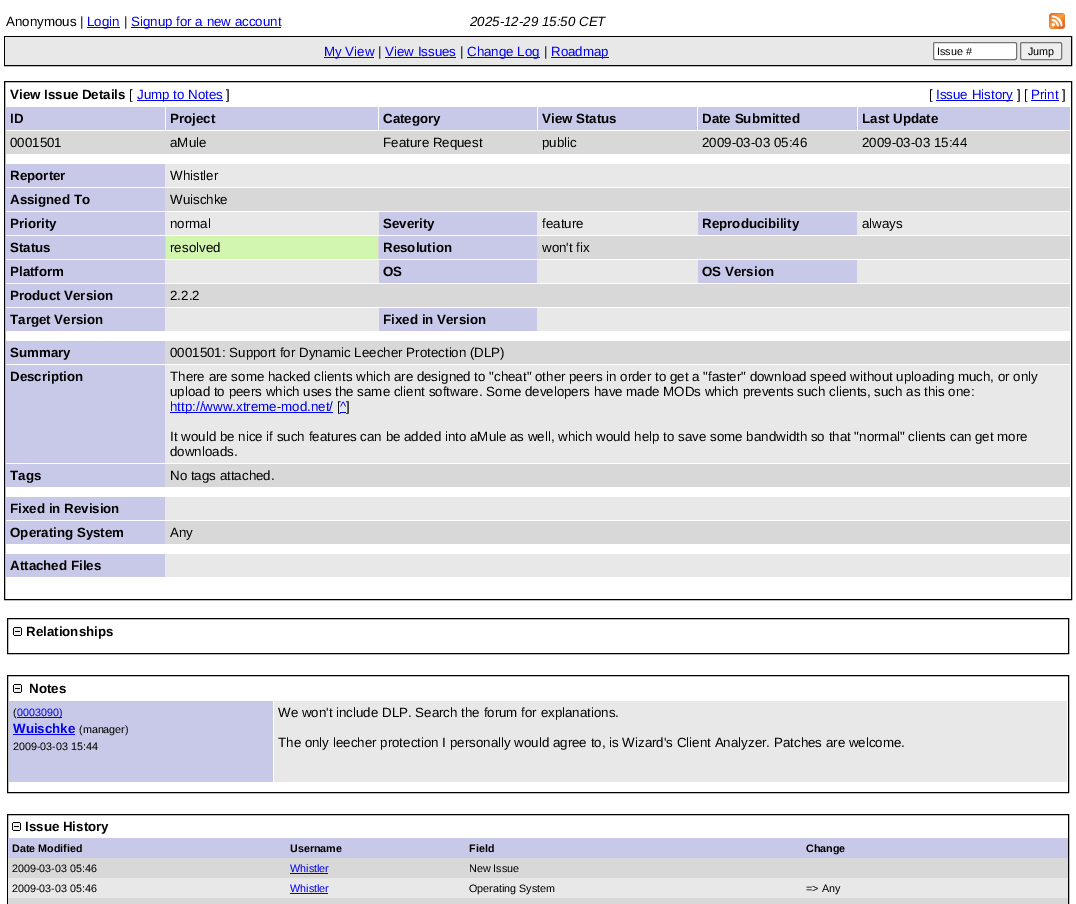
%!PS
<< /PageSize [1076 904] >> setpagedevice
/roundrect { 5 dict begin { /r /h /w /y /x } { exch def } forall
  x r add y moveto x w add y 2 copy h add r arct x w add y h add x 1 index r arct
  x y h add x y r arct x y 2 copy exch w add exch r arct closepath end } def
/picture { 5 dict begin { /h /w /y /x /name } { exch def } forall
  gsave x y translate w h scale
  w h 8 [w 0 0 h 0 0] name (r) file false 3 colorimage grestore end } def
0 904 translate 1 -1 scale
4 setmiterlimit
1 setgray
0 0 1076 904 rectfill
/LiberationSans-Regular [13.33 0 0 -13.33 0 0] selectfont
0 setgray
6 26 moveto (Anonymous |) show
0 0 0.933 setrgbcolor
87 27 33 1 rectfill
87 26 moveto (Login) show
0 setgray
124 26 moveto (|) show
0 0 0.933 setrgbcolor
131 27 150 1 rectfill
131 26 moveto (Signup for a new account) show
/LiberationSans-Italic [13.33 0 0 -13.33 0 0] selectfont
0 setgray
470 26 moveto (2025-12-29 15:50 CET) show
(img1.rgb) 1049 13 16 16 picture
4.5 36.5 1067 29 rectstroke
0.91 setgray
5 37 1066 28 rectfill
0 0 0.933 setrgbcolor
324 57 50 1 rectfill
/LiberationSans-Regular [13.33 0 0 -13.33 0 0] selectfont
324 56 moveto (My View) show
0 setgray
378 56 moveto (|) show
0 0 0.933 setrgbcolor
385 56 moveto (View Issues) show
385 57 71 1 rectfill
0 setgray
460 56 moveto (|) show
0 0 0.933 setrgbcolor
467 57 73 1 rectfill
467 56 moveto (Change Log) show
0 setgray
544 56 moveto (|) show
0 0 0.933 setrgbcolor
551 57 58 1 rectfill
551 56 moveto (Roadmap) show
1 setgray
933.5 42.5 83 17 1.5 roundrect gsave fill grestore
0.463 setgray
stroke
/LiberationSans-Regular [10.75 0 0 -10.75 0 0] selectfont
0 setgray
937 55 moveto (Issue #) show
0.937 setgray
1020.5 42.5 41 17 1.5 roundrect gsave fill grestore
0.463 setgray
stroke
0 setgray
1028 55 moveto (Jump) show
4.5 81.5 1067 518 rectstroke
/LiberationSans-Bold [13.33 0 0 -13.33 0 0] selectfont
10 99 moveto (View Issue Details) show
/LiberationSans-Regular [13.33 0 0 -13.33 0 0] selectfont
129 99 moveto ([) show
0 0 0.933 setrgbcolor
137 100 86 1 rectfill
137 99 moveto (Jump to Notes) show
0 setgray
226 99 moveto (]) show
929 99 moveto ([) show
0 0 0.933 setrgbcolor
936 100 77 1 rectfill
936 99 moveto (Issue History) show
0 setgray
1017 99 moveto (]) show
1024 99 moveto ([) show
0 0 0.933 setrgbcolor
1031 99 moveto (Print) show
1031 100 28 1 rectfill
0 setgray
1062 99 moveto (]) show
0.784 0.784 0.91 setrgbcolor
6 107 159 23 rectfill
/LiberationSans-Bold [13.33 0 0 -13.33 0 0] selectfont
0 setgray
10 123 moveto (ID) show
0.784 0.784 0.91 setrgbcolor
166 107 212 23 rectfill
0 setgray
170 123 moveto (Project) show
0.784 0.784 0.91 setrgbcolor
379 107 158 23 rectfill
0 setgray
383 123 moveto (Category) show
0.784 0.784 0.91 setrgbcolor
538 107 159 23 rectfill
0 setgray
542 123 moveto (View Status) show
0.784 0.784 0.91 setrgbcolor
698 107 159 23 rectfill
0 setgray
702 123 moveto (Date Submitted) show
0.784 0.784 0.91 setrgbcolor
858 107 212 23 rectfill
0 setgray
862 123 moveto (Last Update) show
0.847 setgray
6 131 1064 23 rectfill
/LiberationSans-Regular [13.33 0 0 -13.33 0 0] selectfont
0 setgray
10 147 moveto (0001501) show
170 147 moveto (aMule) show
383 147 moveto (Feature Request) show
542 147 moveto (public) show
702 147 moveto (2009-03-03 05:46) show
862 147 moveto (2009-03-03 15:44) show
0.91 setgray
165 164 905 23 rectfill
0.784 0.784 0.91 setrgbcolor
6 164 159 23 rectfill
/LiberationSans-Bold [13.33 0 0 -13.33 0 0] selectfont
0 setgray
10 180 moveto (Reporter) show
/LiberationSans-Regular [13.33 0 0 -13.33 0 0] selectfont
170 180 moveto (Whistler) show
0.847 setgray
165 188 905 23 rectfill
0.784 0.784 0.91 setrgbcolor
6 188 159 23 rectfill
/LiberationSans-Bold [13.33 0 0 -13.33 0 0] selectfont
0 setgray
10 204 moveto (Assigned To) show
/LiberationSans-Regular [13.33 0 0 -13.33 0 0] selectfont
170 204 moveto (Wuischke) show
0.91 setgray
165 212 905 23 rectfill
0.784 0.784 0.91 setrgbcolor
6 212 159 23 rectfill
/LiberationSans-Bold [13.33 0 0 -13.33 0 0] selectfont
0 setgray
10 228 moveto (Priority) show
/LiberationSans-Regular [13.33 0 0 -13.33 0 0] selectfont
170 228 moveto (normal) show
0.784 0.784 0.91 setrgbcolor
379 212 158 23 rectfill
/LiberationSans-Bold [13.33 0 0 -13.33 0 0] selectfont
0 setgray
383 228 moveto (Severity) show
/LiberationSans-Regular [13.33 0 0 -13.33 0 0] selectfont
542 228 moveto (feature) show
0.784 0.784 0.91 setrgbcolor
698 212 159 23 rectfill
/LiberationSans-Bold [13.33 0 0 -13.33 0 0] selectfont
0 setgray
702 228 moveto (Reproducibility) show
/LiberationSans-Regular [13.33 0 0 -13.33 0 0] selectfont
862 228 moveto (always) show
0.847 setgray
165 236 905 23 rectfill
0.784 0.784 0.91 setrgbcolor
6 236 159 23 rectfill
/LiberationSans-Bold [13.33 0 0 -13.33 0 0] selectfont
0 setgray
10 252 moveto (Status) show
0.824 0.961 0.69 setrgbcolor
166 236 212 23 rectfill
/LiberationSans-Regular [13.33 0 0 -13.33 0 0] selectfont
0 setgray
170 252 moveto (resolved) show
0.784 0.784 0.91 setrgbcolor
379 236 158 23 rectfill
/LiberationSans-Bold [13.33 0 0 -13.33 0 0] selectfont
0 setgray
383 252 moveto (Resolution) show
/LiberationSans-Regular [13.33 0 0 -13.33 0 0] selectfont
542 252 moveto (won't fix) show
0.91 setgray
165 260 905 23 rectfill
0.784 0.784 0.91 setrgbcolor
6 260 159 23 rectfill
/LiberationSans-Bold [13.33 0 0 -13.33 0 0] selectfont
0 setgray
10 276 moveto (Platform) show
0.784 0.784 0.91 setrgbcolor
379 260 158 23 rectfill
0 setgray
383 276 moveto (OS) show
0.784 0.784 0.91 setrgbcolor
698 260 159 23 rectfill
0 setgray
702 276 moveto (OS Version) show
0.847 setgray
165 284 905 23 rectfill
0.784 0.784 0.91 setrgbcolor
6 284 159 23 rectfill
0 setgray
10 300 moveto (Product Version) show
/LiberationSans-Regular [13.33 0 0 -13.33 0 0] selectfont
170 300 moveto (2.2.2) show
0.91 setgray
165 308 905 23 rectfill
0.784 0.784 0.91 setrgbcolor
6 308 159 23 rectfill
/LiberationSans-Bold [13.33 0 0 -13.33 0 0] selectfont
0 setgray
10 324 moveto (Target Version) show
0.784 0.784 0.91 setrgbcolor
379 308 158 23 rectfill
0 setgray
383 324 moveto (Fixed in Version) show
0.847 setgray
165 341 905 23 rectfill
0.784 0.784 0.91 setrgbcolor
6 341 159 23 rectfill
0 setgray
10 357 moveto (Summary) show
/LiberationSans-Regular [13.33 0 0 -13.33 0 0] selectfont
170 357 moveto (0001501: Support for Dynamic Leecher Protection \(DLP\)) show
0.91 setgray
165 365 905 98 rectfill
0.784 0.784 0.91 setrgbcolor
6 365 159 98 rectfill
/LiberationSans-Bold [13.33 0 0 -13.33 0 0] selectfont
0 setgray
10 381 moveto (Description) show
/LiberationSans-Regular [13.33 0 0 -13.33 0 0] selectfont
170 381 moveto (There are some hacked clients which are designed to "cheat" other peers in order to get a "faster" download speed without uploading much, or only) show
170 396 moveto (upload to peers which uses the same client software. Some developers have made MODs which prevents such clients, such as this one:) show
0 0 0.933 setrgbcolor
170 412 163 1 rectfill
170 411 moveto (http://www.xtreme-mod.net/) show
0 setgray
337 411 moveto ([) show
0 0 0.933 setrgbcolor
340 411 moveto (^) show
340 412 6 1 rectfill
0 setgray
346 411 moveto (]) show
170 441 moveto (It would be nice if such features can be added into aMule as well, which would help to save some bandwidth so that "normal" clients can get more) show
170 456 moveto (downloads.) show
0.847 setgray
165 464 905 23 rectfill
0.784 0.784 0.91 setrgbcolor
6 464 159 23 rectfill
/LiberationSans-Bold [13.33 0 0 -13.33 0 0] selectfont
0 setgray
10 480 moveto (Tags) show
/LiberationSans-Regular [13.33 0 0 -13.33 0 0] selectfont
170 480 moveto (No tags attached.) show
0.91 setgray
165 497 905 23 rectfill
0.784 0.784 0.91 setrgbcolor
6 497 159 23 rectfill
/LiberationSans-Bold [13.33 0 0 -13.33 0 0] selectfont
0 setgray
10 513 moveto (Fixed in Revision) show
0.847 setgray
165 521 905 23 rectfill
0.784 0.784 0.91 setrgbcolor
6 521 159 23 rectfill
0 setgray
10 537 moveto (Operating System) show
/LiberationSans-Regular [13.33 0 0 -13.33 0 0] selectfont
170 537 moveto (Any) show
0.91 setgray
165 554 905 23 rectfill
0.784 0.784 0.91 setrgbcolor
6 554 159 23 rectfill
/LiberationSans-Bold [13.33 0 0 -13.33 0 0] selectfont
0 setgray
10 570 moveto (Attached Files) show
7.5 618.5 1061 35 rectstroke
(img2.rgb) 13 627 9 9 picture
26 636 moveto (Relationships) show
7.5 675.5 1061 117 rectstroke
(img2.rgb) 13 684 9 9 picture
29 693 moveto (Notes) show
0.784 0.784 0.91 setrgbcolor
9 701 264 81 rectfill
/LiberationSans-Regular [10.75 0 0 -10.75 0 0] selectfont
0 setgray
13 716 moveto (\() show
0 0 0.933 setrgbcolor
17 717 45 1 rectfill
17 716 moveto (0003090\)) show
/LiberationSans-Bold [13.33 0 0 -13.33 0 0] selectfont
13 733 moveto (Wuischke) show
13 734 62 1 rectfill
/LiberationSans-Regular [10.75 0 0 -10.75 0 0] selectfont
0 setgray
79 733 moveto (\(manager\)) show
13 750 moveto (2009-03-03 15:44) show
0.91 setgray
274 701 793 81 rectfill
/LiberationSans-Regular [13.33 0 0 -13.33 0 0] selectfont
0 setgray
278 717 moveto (We won't include DLP. Search the forum for explanations.) show
278 747 moveto (The only leecher protection I personally would agree to, is Wizard's Client Analyzer. Patches are welcome.) show
7.5 814.5 1061 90 rectstroke
(img2.rgb) 12 822 9 9 picture
/LiberationSans-Bold [13.33 0 0 -13.33 0 0] selectfont
25 831 moveto (Issue History) show
0.784 0.784 0.91 setrgbcolor
8 838 1060 20 rectfill
/LiberationSans-Bold [10.75 0 0 -10.75 0 0] selectfont
0 setgray
12 852 moveto (Date Modified) show
290 852 moveto (Username) show
469 852 moveto (Field) show
806 852 moveto (Change) show
0.847 setgray
8 858 1060 20 rectfill
/LiberationSans-Regular [10.75 0 0 -10.75 0 0] selectfont
0 setgray
12 872 moveto (2009-03-03 05:46) show
0 0 0.933 setrgbcolor
290 872 moveto (Whistler) show
290 873 38 1 rectfill
0 setgray
469 872 moveto (New Issue) show
0.91 setgray
8 878 1060 20 rectfill
0 setgray
12 892 moveto (2009-03-03 05:46) show
0 0 0.933 setrgbcolor
290 892 moveto (Whistler) show
290 893 38 1 rectfill
0 setgray
469 892 moveto (Operating System) show
806 892 moveto (=> Any) show
0.847 setgray
8 898 1060 6 rectfill
showpage
